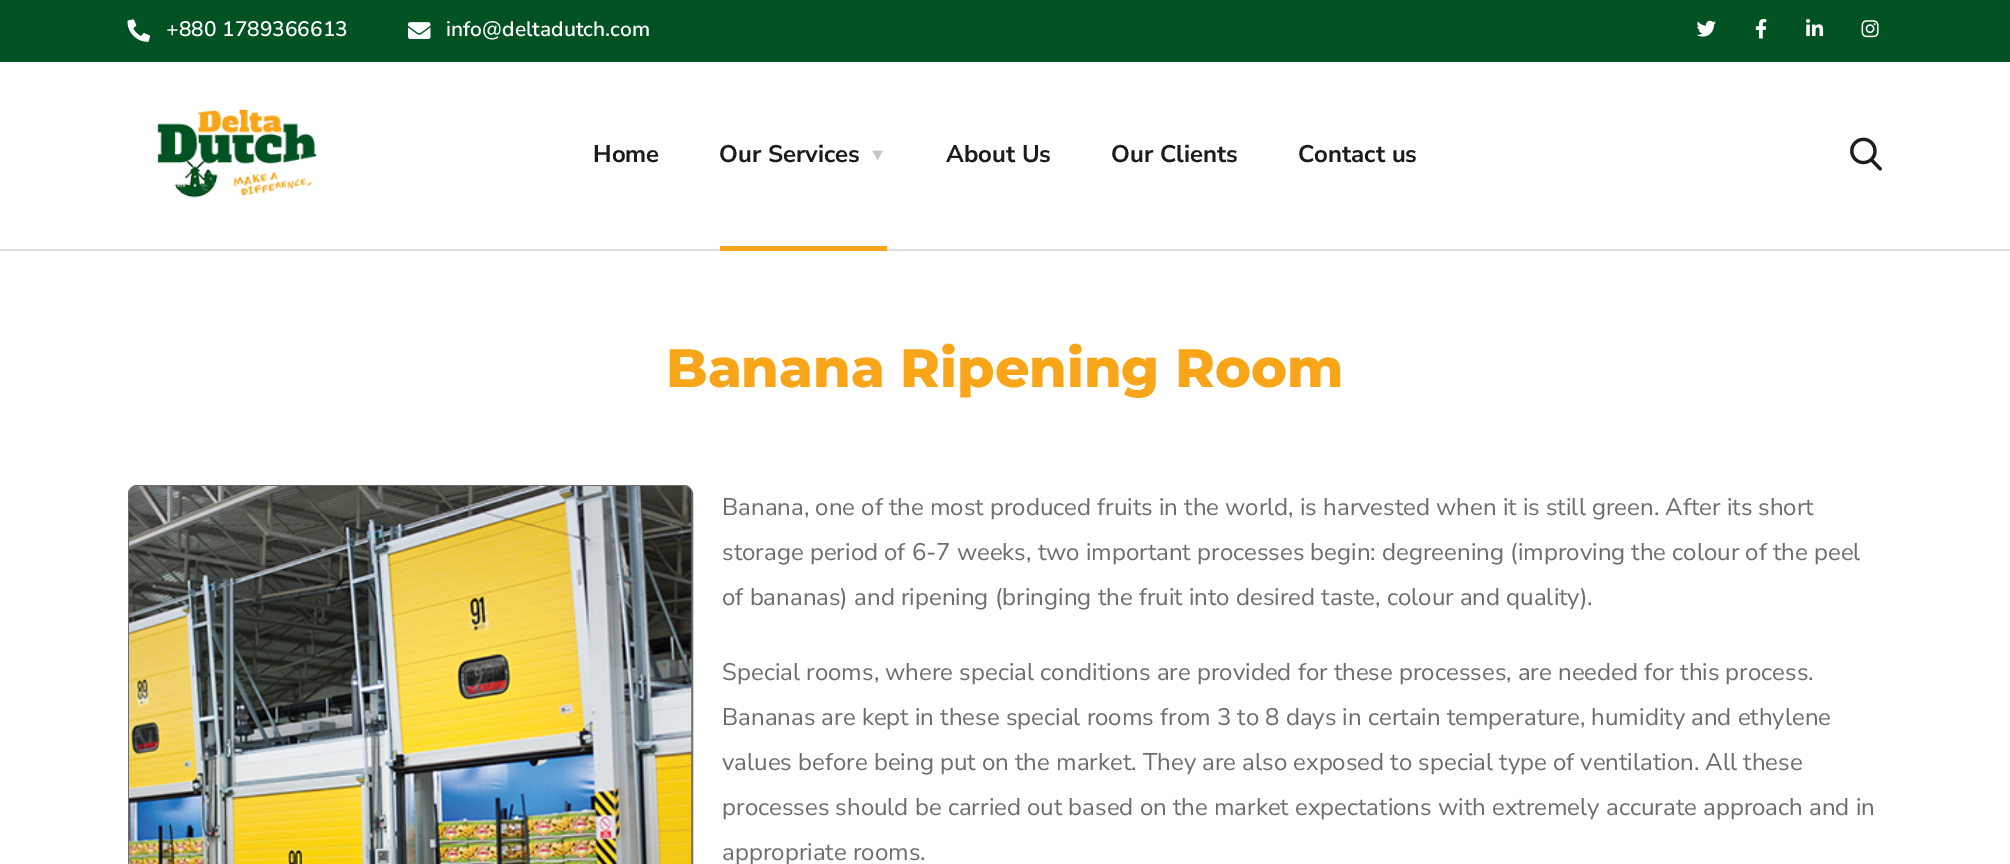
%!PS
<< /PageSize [2010 864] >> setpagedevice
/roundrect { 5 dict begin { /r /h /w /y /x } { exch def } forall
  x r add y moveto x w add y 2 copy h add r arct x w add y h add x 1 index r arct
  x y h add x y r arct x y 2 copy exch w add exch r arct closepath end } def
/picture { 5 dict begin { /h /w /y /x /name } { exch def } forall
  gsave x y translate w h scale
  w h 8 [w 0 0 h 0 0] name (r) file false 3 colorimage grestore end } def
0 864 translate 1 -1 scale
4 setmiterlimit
1 setgray
0 0 2010 864 rectfill
0.863 0.867 0.882 setrgbcolor
0 249 2010 2 rectfill
0 0.322 0.133 setrgbcolor
0 0 2010 62 rectfill
(img1.rgb) 127 19 23 23 picture
/NunitoSans-SemiBold [21 0 0 -21 0 0] selectfont
1 setgray
166 36 moveto (+880 1789366613) show
(img2.rgb) 408 22 23 17 picture
446 36 moveto (info@deltadutch.com) show
(img3.rgb) 1696 20 20 17 picture
(img4.rgb) 1755 18 12 21 picture
(img5.rgb) 1806 19 18 17 picture
(img6.rgb) 1861 20 18 18 picture
(img7.rgb) 157 109 160 89 picture
/NunitoSans-Bold [24 0 0 -24 0 0] selectfont
0.102 0.106 0.118 setrgbcolor
593 162 moveto (Home) show
719 162 moveto (Our Services) show
(img8.rgb) 872 150 11 10 picture
0.976 0.647 0.102 setrgbcolor
720 246 167 5 rectfill
0.102 0.106 0.118 setrgbcolor
946 162 moveto (About Us) show
1111 162 moveto (Our Clients) show
1298 162 moveto (Contact us) show
(img9.rgb) 1850 137 32 34 picture
/Montserrat-ExtraBold [54 0 0 -54 0 0] selectfont
0.976 0.647 0.102 setrgbcolor
666 387 moveto (Banana Ripening Room) show
0.427 setgray
2 setlinewidth
129 486 563 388 8 roundrect stroke
(img10.rgb) 129 486 563 378 picture
/NunitoSans-Regular [24 0 0 -24 0 0] selectfont
722 515 moveto (Banana, one of the most produced fruits in the world, is harvested when it is still green. After its short) show
722 560 moveto (storage period of 6-7 weeks, two important processes begin: degreening \(improving the colour of the peel) show
722 605 moveto (of bananas\) and ripening \(bringing the fruit into desired taste, colour and quality\).) show
722 680 moveto (Special rooms, where special conditions are provided for these processes, are needed for this process.) show
722 725 moveto (Bananas are kept in these special rooms from 3 to 8 days in certain temperature, humidity and ethylene) show
722 770 moveto (values before being put on the market. They are also exposed to special type of ventilation. All these) show
722 815 moveto (processes should be carried out based on the market expectations with extremely accurate approach and in) show
722 860 moveto (appropriate rooms.) show
showpage
